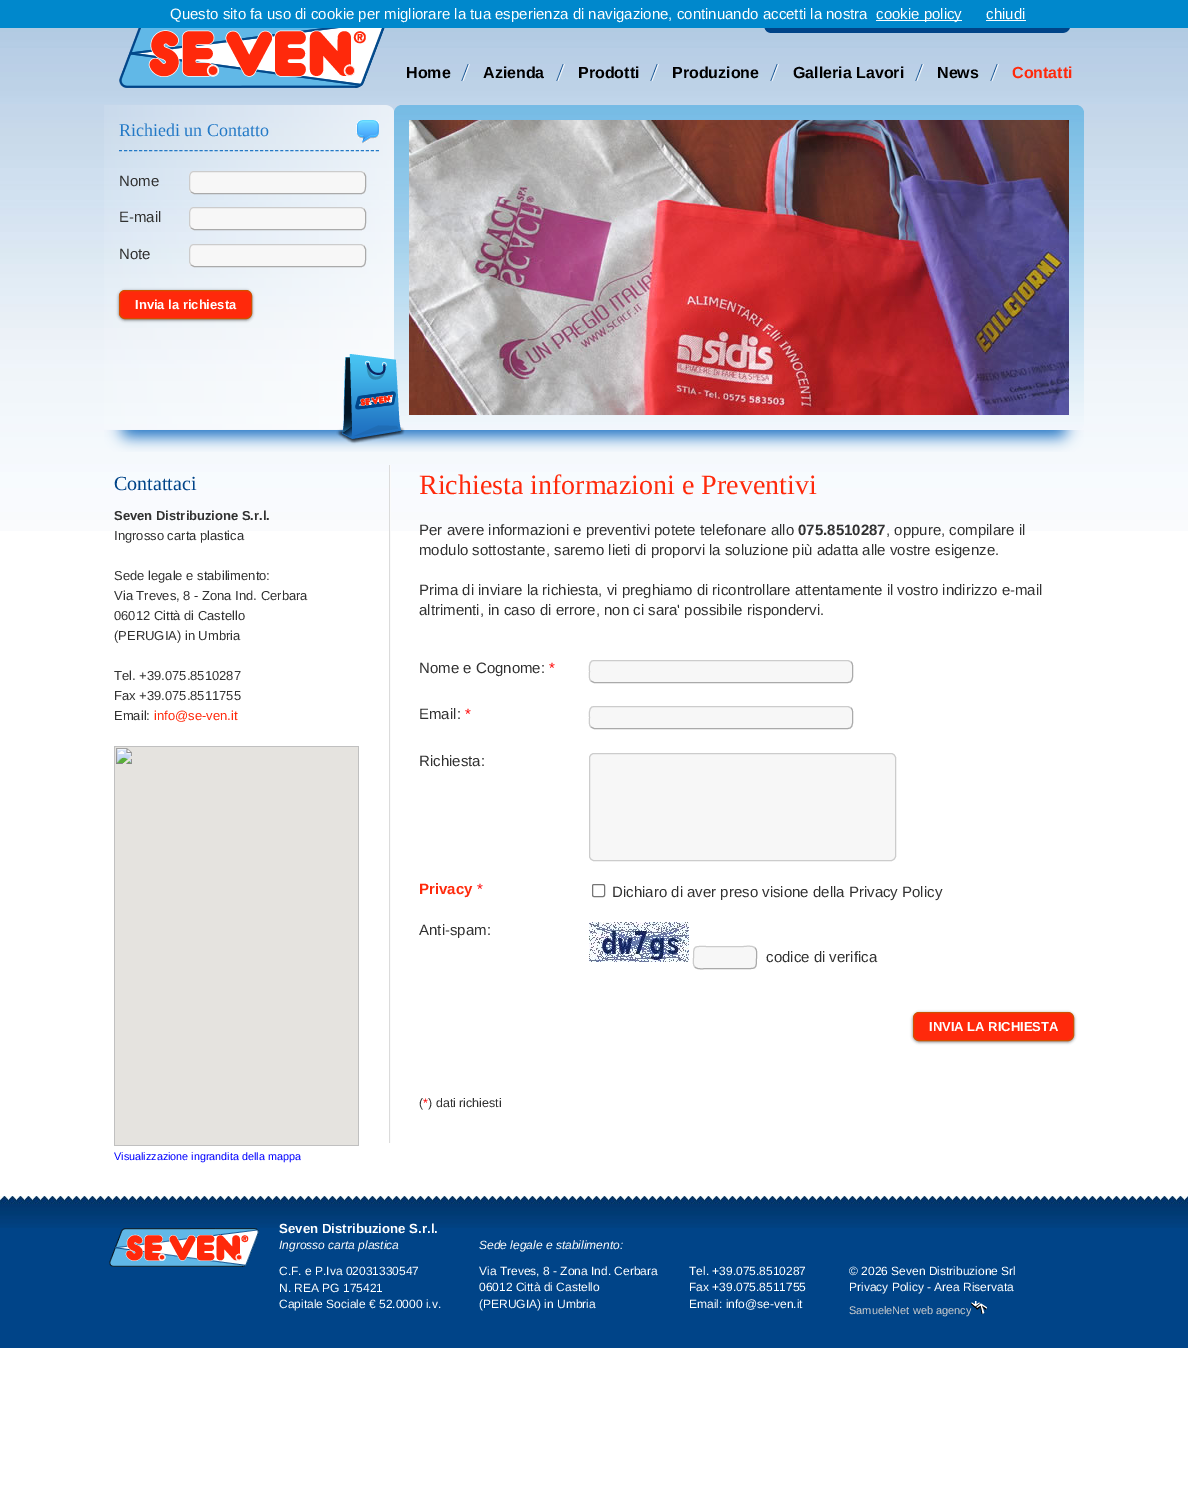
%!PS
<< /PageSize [1188 1487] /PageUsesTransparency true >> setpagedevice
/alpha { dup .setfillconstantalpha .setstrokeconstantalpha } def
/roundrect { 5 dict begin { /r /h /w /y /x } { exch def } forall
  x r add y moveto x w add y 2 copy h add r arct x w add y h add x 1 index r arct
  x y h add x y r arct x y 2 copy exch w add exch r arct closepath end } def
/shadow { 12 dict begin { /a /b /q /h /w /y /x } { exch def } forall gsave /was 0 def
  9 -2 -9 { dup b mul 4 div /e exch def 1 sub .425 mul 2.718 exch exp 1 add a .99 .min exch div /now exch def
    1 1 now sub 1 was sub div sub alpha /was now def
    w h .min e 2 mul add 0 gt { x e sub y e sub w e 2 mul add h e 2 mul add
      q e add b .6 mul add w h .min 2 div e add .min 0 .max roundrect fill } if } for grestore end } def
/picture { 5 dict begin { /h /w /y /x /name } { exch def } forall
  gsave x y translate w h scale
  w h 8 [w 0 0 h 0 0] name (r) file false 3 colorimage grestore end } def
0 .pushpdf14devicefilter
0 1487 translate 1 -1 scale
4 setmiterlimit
1 setgray
0 0 1188 1487 rectfill
(img1.rgb) 0 28 1188 503 picture
0 0.533 0.8 setrgbcolor
0 0 1188 28 rectfill
/LiberationSans-Regular [15 0 0 -15 0 0] selectfont
1 setgray
170 19 moveto (Questo sito fa uso di cookie per migliorare la tua esperienza di navigazione, continuando accetti la nostra) show
876 20 86 1 rectfill
876 19 moveto (cookie policy) show
986 19 moveto (chiudi) show
986 20 40 1 rectfill
(img2.rgb) 119 28 266 60 picture
(img3.rgb) 764 28 306 5 picture
(img4.rgb) 461 64 9 17 picture
/LiberationSans-Bold [16 0 0 -16 0 0] selectfont
0 setgray
406 78 moveto (Home) show
(img4.rgb) 556 64 9 17 picture
483 78 moveto (Azienda) show
(img4.rgb) 650 64 9 17 picture
578 78 moveto (Prodotti) show
(img4.rgb) 770 64 9 17 picture
672 78 moveto (Produzione) show
(img4.rgb) 915 64 9 17 picture
793 78 moveto (Galleria Lavori) show
(img4.rgb) 990 64 9 17 picture
937 78 moveto (News) show
1 0.161 0.043 setrgbcolor
1012 78 moveto (Contatti) show
(img5.rgb) 104 105 980 347 picture
(img6.rgb) 356 120 23 24 picture
0.137 0.475 0.776 setrgbcolor
[3 2.04] 0 setdash
newpath 119 150.5 moveto 379 150.5 lineto stroke
/LiberationSerif-Regular [18 0 0 -18 0 0] selectfont
119 136 moveto (Richiedi un Contatto) show
/LiberationSans-Regular [15 0 0 -15 0 0] selectfont
0.192 setgray
119 186 moveto (Nome) show
0.969 setgray
189 171 177 23 5 roundrect fill
0.667 setgray
[] 0 setdash
newpath 364 173 moveto 365.5 176 lineto 365.5 184.5 lineto 365.5 188 366 193.5 361 193.5 curveto 194 193.5 lineto 191 192 lineto stroke
0.8 setgray
newpath 191 192 moveto 189.5 189 lineto 189.5 180.5 lineto 189.5 177 189 171.5 194 171.5 curveto 361 171.5 lineto 364 173 lineto stroke
0.192 setgray
119 222 moveto (E-mail) show
0.969 setgray
189 207 177 23 5 roundrect fill
0.667 setgray
newpath 364 209 moveto 365.5 212 lineto 365.5 220.5 lineto 365.5 224 366 229.5 361 229.5 curveto 194 229.5 lineto 191 228 lineto stroke
0.8 setgray
newpath 191 228 moveto 189.5 225 lineto 189.5 216.5 lineto 189.5 213 189 207.5 194 207.5 curveto 361 207.5 lineto 364 209 lineto stroke
0.192 setgray
119 259 moveto (Note) show
0.969 setgray
189 244 177 23 5 roundrect fill
0.667 setgray
newpath 364 246 moveto 365.5 249 lineto 365.5 257.5 lineto 365.5 261 366 266.5 361 266.5 curveto 194 266.5 lineto 191 265 lineto stroke
0.8 setgray
newpath 191 265 moveto 189.5 262 lineto 189.5 253.5 lineto 189.5 250 189 244.5 194 244.5 curveto 361 244.5 lineto 364 246 lineto stroke
0 setgray
119 291 133 29 6 1.5 0.5 shadow
1 0.161 0.043 setrgbcolor
119.5 290.5 132 28 5.5 roundrect gsave fill grestore
0.824 0.31 0 setrgbcolor
stroke
/LiberationSans-Bold [13 0 0 -13 0 0] selectfont
1 setgray
135 309 moveto (Invia la richiesta) show
(img7.rgb) 409 120 660 295 picture
/LiberationSerif-Regular [20 0 0 -20 0 0] selectfont
0 0.267 0.533 setrgbcolor
114 490 moveto (Contattaci) show
/LiberationSans-Bold [13 0 0 -13 0 0] selectfont
0.192 setgray
114 520 moveto (Seven Distribuzione S.r.l.) show
/LiberationSans-Regular [13 0 0 -13 0 0] selectfont
114 540 moveto (Ingrosso carta plastica) show
114 580 moveto (Sede legale e stabilimento:) show
114 600 moveto (Via Treves, 8 - Zona Ind. Cerbara) show
114 620 moveto (06012 Città di Castello) show
114 640 moveto (\(PERUGIA\) in Umbria) show
114 680 moveto (Tel. +39.075.8510287) show
114 700 moveto (Fax +39.075.8511755) show
114 720 moveto (Email:) show
1 0.161 0.043 setrgbcolor
154 720 moveto (info@se-ven.it) show
(img8.rgb) 114 746 245 400 picture
/LiberationSans-Regular [10.8 0 0 -10.8 0 0] selectfont
0 0 1 setrgbcolor
114 1160 moveto (Visualizzazione ingrandita della mappa) show
(img9.rgb) 389 465 2 678 picture
/LiberationSerif-Regular [28 0 0 -28 0 0] selectfont
1 0.161 0.043 setrgbcolor
419 494 moveto (Richiesta informazioni e Preventivi) show
/LiberationSans-Regular [15 0 0 -15 0 0] selectfont
0.192 setgray
419 535 moveto (Per avere informazioni e preventivi potete telefonare allo) show
/LiberationSans-Bold [15 0 0 -15 0 0] selectfont
798 535 moveto (075.8510287) show
/LiberationSans-Regular [15 0 0 -15 0 0] selectfont
886 535 moveto (, oppure, compilare il) show
419 555 moveto (modulo sottostante, saremo lieti di proporvi la soluzione più adatta alle vostre esigenze.) show
419 595 moveto (Prima di inviare la richiesta, vi preghiamo di ricontrollare attentamente il vostro indirizzo e-mail) show
419 615 moveto (altrimenti, in caso di errore, non ci sara' possibile rispondervi.) show
419 673 moveto (Nome e Cognome:) show
1 0 0 setrgbcolor
549 673 moveto (*) show
0.969 setgray
589 660 264 23 5 roundrect fill
0.667 setgray
newpath 851 662 moveto 853.5 664 852.5 668.5 852.5 671.5 curveto 852.5 674.5 853.5 680 850 682 curveto 848 682.5 lineto 594 682.5 lineto 591 681 lineto stroke
0.8 setgray
newpath 591 681 moveto 588.5 679 589.5 674.5 589.5 671.5 curveto 589.5 668.5 588.5 663 592 661 curveto 594 660.5 lineto 848 660.5 lineto 851 662 lineto stroke
0.192 setgray
419 719 moveto (Email:) show
1 0 0 setrgbcolor
465 719 moveto (*) show
0.969 setgray
589 706 264 23 5 roundrect fill
0.667 setgray
newpath 851 708 moveto 853.5 710 852.5 714.5 852.5 717.5 curveto 852.5 720.5 853.5 726 850 728 curveto 848 728.5 lineto 594 728.5 lineto 591 727 lineto stroke
0.8 setgray
newpath 591 727 moveto 588.5 725 589.5 720.5 589.5 717.5 curveto 589.5 714.5 588.5 709 592 707 curveto 594 706.5 lineto 848 706.5 lineto 851 708 lineto stroke
0.192 setgray
419 766 moveto (Richiesta:) show
0.969 setgray
589.5 753.5 306 107 4.5 roundrect gsave fill grestore
0.8 setgray
stroke
/LiberationSans-Bold [15 0 0 -15 0 0] selectfont
1 0.161 0.043 setrgbcolor
419 894 moveto (Privacy) show
/LiberationSans-Regular [15 0 0 -15 0 0] selectfont
1 0 0 setrgbcolor
477 894 moveto (*) show
0.463 setgray
592.5 884.5 12 12 1.5 roundrect stroke
0.192 setgray
612 897 moveto (Dichiaro di aver preso visione della Privacy Policy) show
419 935 moveto (Anti-spam:) show
(img10.rgb) 589 922 100 40 picture
0.969 setgray
693 946 64 23 5 roundrect fill
0.667 setgray
newpath 755 948 moveto 757.5 950 756.5 954.5 756.5 957.5 curveto 756.5 970 756 968.5 743 968.5 curveto 707 968.5 lineto 705 968.5 697.5 970 695 967 curveto stroke
0.8 setgray
newpath 695 967 moveto 692.5 965 693.5 960.5 693.5 957.5 curveto 693.5 945 694 946.5 707 946.5 curveto 743 946.5 lineto 745 946.5 752.5 945 755 948 curveto stroke
0.192 setgray
766 962 moveto (codice di verifica) show
0 setgray
913 1013 161 29 6 1.5 0.5 shadow
1 0.161 0.043 setrgbcolor
913.5 1012.5 160 28 5.5 roundrect gsave fill grestore
0.824 0.31 0 setrgbcolor
stroke
/LiberationSans-Bold [13 0 0 -13 0 0] selectfont
1 setgray
929 1031 moveto (INVIA LA RICHIESTA) show
/LiberationSans-Regular [12.5 0 0 -12.5 0 0] selectfont
0.192 setgray
419 1107 moveto (\() show
1 0 0 setrgbcolor
423 1107 moveto (*) show
0.192 setgray
428 1107 moveto (\) dati richiesti) show
0 0.267 0.533 setrgbcolor
0 1228 1188 120 rectfill
(img11.rgb) 0 1196 1188 32 picture
(img12.rgb) 109 1228 150 39 picture
/LiberationSans-Bold [13.25 0 0 -13.25 0 0] selectfont
1 setgray
279 1233 moveto (Seven Distribuzione S.r.l.) show
/LiberationSans-Italic [12 0 0 -12 0 0] selectfont
279 1249 moveto (Ingrosso carta plastica) show
/LiberationSans-Regular [12 0 0 -12 0 0] selectfont
279 1275 moveto (C.F. e P.Iva 02031330547) show
279 1292 moveto (N. REA PG 175421) show
279 1308 moveto (Capitale Sociale € 52.0000 i.v.) show
/LiberationSans-Italic [12 0 0 -12 0 0] selectfont
479 1249 moveto (Sede legale e stabilimento:) show
/LiberationSans-Regular [12 0 0 -12 0 0] selectfont
479 1275 moveto (Via Treves, 8 - Zona Ind. Cerbara) show
479 1291 moveto (06012 Città di Castello) show
479 1308 moveto (\(PERUGIA\) in Umbria) show
689 1275 moveto (Tel. +39.075.8510287) show
689 1291 moveto (Fax +39.075.8511755) show
689 1308 moveto (Email: info@se-ven.it) show
849 1275 moveto (© 2026 Seven Distribuzione Srl) show
849 1291 moveto (Privacy Policy - Area Riservata) show
/LiberationSans-Regular [11 0 0 -11 0 0] selectfont
0.8 setgray
849 1314 moveto (SamueleNet web agency) show
(img13.rgb) 971 1301 16 13 picture
.poppdf14devicefilter showpage
